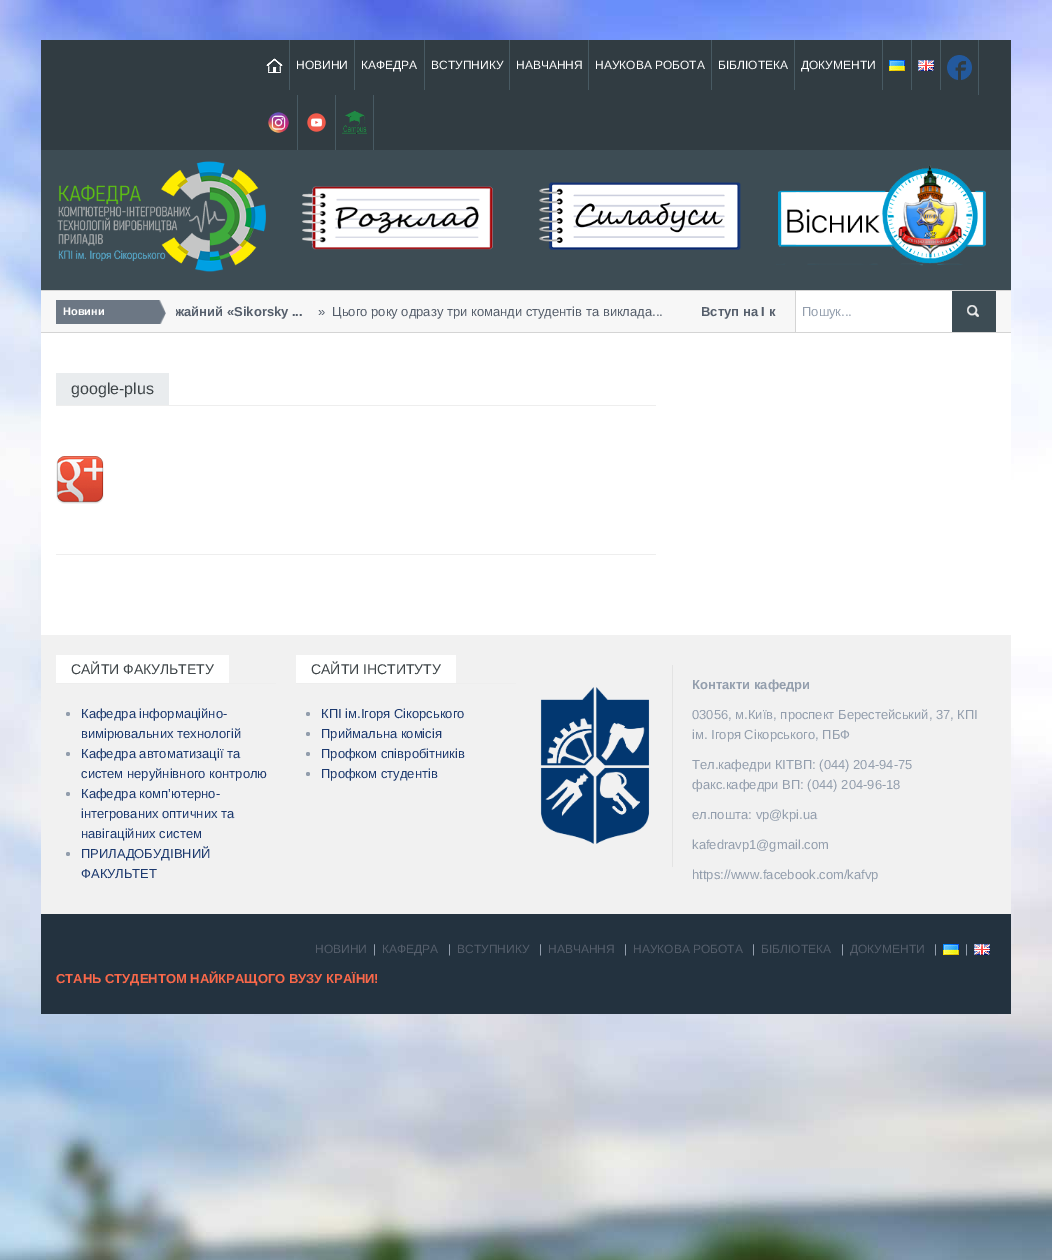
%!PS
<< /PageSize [1052 1260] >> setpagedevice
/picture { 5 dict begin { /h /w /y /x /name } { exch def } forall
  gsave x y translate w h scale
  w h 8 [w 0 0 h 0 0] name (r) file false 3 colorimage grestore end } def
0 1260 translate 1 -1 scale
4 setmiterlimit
1 setgray
0 0 1052 1260 rectfill
(img1.rgb) 0 0 1052 1260 picture
0.192 0.235 0.259 setrgbcolor
41 40 970 110 rectfill
0.282 0.353 0.388 setrgbcolor
289 40 1 50 rectfill
(img2.rgb) 266 58 17 15 picture
354 40 1 50 rectfill
/LiberationSans-Regular [12 0 0 -12 0 0] selectfont
1 setgray
296 69 moveto (НОВИНИ) show
0.282 0.353 0.388 setrgbcolor
424 40 1 50 rectfill
1 setgray
361 69 moveto (КАФЕДРА) show
0.282 0.353 0.388 setrgbcolor
509 40 1 50 rectfill
1 setgray
431 69 moveto (ВСТУПНИКУ) show
0.282 0.353 0.388 setrgbcolor
588 40 1 50 rectfill
1 setgray
516 69 moveto (НАВЧАННЯ) show
0.282 0.353 0.388 setrgbcolor
711 40 1 50 rectfill
1 setgray
595 69 moveto (НАУКОВА РОБОТА) show
0.282 0.353 0.388 setrgbcolor
794 40 1 50 rectfill
1 setgray
718 69 moveto (БІБЛІОТЕКА) show
0.282 0.353 0.388 setrgbcolor
882 40 1 50 rectfill
1 setgray
801 69 moveto (ДОКУМЕНТИ) show
0.282 0.353 0.388 setrgbcolor
911 40 1 50 rectfill
(img3.rgb) 889 60 16 11 picture
940 40 1 50 rectfill
(img4.rgb) 918 60 16 11 picture
978 40 1 55 rectfill
(img5.rgb) 947 55 25 25 picture
297 95 1 55 rectfill
(img6.rgb) 268 112 21 21 picture
335 95 1 55 rectfill
(img7.rgb) 307 113 19 19 picture
373 95 1 55 rectfill
(img8.rgb) 342 110 25 24 picture
0.239 0.298 0.329 setrgbcolor
41 150 970 140 rectfill
(img9.rgb) 57 161 209 111 picture
(img10.rgb) 302 186 191 64 picture
(img11.rgb) 539 182 202 68 picture
(img12.rgb) 776 165 210 101 picture
0.969 setgray
41 291 970 41 rectfill
0.831 setgray
41 290 970 1 rectfill
41 332 970 1 rectfill
(img13.rgb) 56 300 110 24 picture
/LiberationSans-Bold [11 0 0 -11 0 0] selectfont
1 setgray
63 315 moveto (Новини) show
gsave
176 300 600 25 rectclip
/LiberationSans-Bold [13 0 0 -13 0 0] selectfont
0.333 0.369 0.42 setrgbcolor
175 316 moveto (жайний «Sikorsky ...) show
grestore
/LiberationSans-Regular [13 0 0 -13 0 0] selectfont
0.333 0.369 0.42 setrgbcolor
318 316 moveto (») show
332 316 moveto (Цього року одразу три команди студентів та виклада...) show
/LiberationSans-Bold [13 0 0 -13 0 0] selectfont
701 316 moveto (Вступ на І к) show
1 setgray
796 291 156 41 rectfill
0.831 setgray
795 291 1 41 rectfill
/LiberationSans-Regular [13 0 0 -13 0 0] selectfont
0.576 0.62 0.678 setrgbcolor
802 316 moveto (Пошук...) show
(img14.rgb) 952 291 44 41 picture
1 setgray
41 333 970 302 rectfill
0.933 setgray
56 405 600 1 rectfill
0.914 0.925 0.933 setrgbcolor
56 373 113 32 rectfill
/LiberationSans-Regular [16 0 0 -16 0 0] selectfont
0.243 0.271 0.282 setrgbcolor
71 394 moveto (google-plus) show
(img15.rgb) 56 456 48 48 picture
0.933 setgray
56 554 600 1 rectfill
0.945 setgray
41 635 970 279 rectfill
0.933 setgray
56 683 220 1 rectfill
1 setgray
56 655 173 28 rectfill
/LiberationSans-Regular [14 0 0 -14 0 0] selectfont
0.243 0.271 0.282 setrgbcolor
71 674 moveto (САЙТИ ФАКУЛЬТЕТУ) show
0.576 0.62 0.678 setrgbcolor
newpath 68 714 2 0 360 arc closepath fill
/LiberationSans-Regular [13 0 0 -13 0 0] selectfont
0.11 0.224 0.431 setrgbcolor
81 718 moveto (Кафедра інформаційно-) show
81 738 moveto (вимірювальних технологій) show
0.576 0.62 0.678 setrgbcolor
newpath 68 754 2 0 360 arc closepath fill
0.11 0.224 0.431 setrgbcolor
81 758 moveto (Кафедра автоматизації та) show
81 778 moveto (систем неруйнівного контролю) show
0.576 0.62 0.678 setrgbcolor
newpath 68 794 2 0 360 arc closepath fill
0.11 0.224 0.431 setrgbcolor
81 798 moveto (Кафедра комп’ютерно-) show
81 818 moveto (інтегрованих оптичних та) show
81 838 moveto (навігаційних систем) show
0.576 0.62 0.678 setrgbcolor
newpath 68 854 2 0 360 arc closepath fill
0.11 0.224 0.431 setrgbcolor
81 858 moveto (ПРИЛАДОБУДІВНИЙ) show
81 878 moveto (ФАКУЛЬТЕТ) show
0.933 setgray
296 683 220 1 rectfill
1 setgray
296 655 160 28 rectfill
/LiberationSans-Regular [14 0 0 -14 0 0] selectfont
0.243 0.271 0.282 setrgbcolor
311 674 moveto (САЙТИ ІНСТИТУТУ) show
0.576 0.62 0.678 setrgbcolor
newpath 308 714 2 0 360 arc closepath fill
/LiberationSans-Regular [13 0 0 -13 0 0] selectfont
0.11 0.224 0.431 setrgbcolor
321 718 moveto (КПІ ім.Ігоря Сікорського) show
0.576 0.62 0.678 setrgbcolor
newpath 308 734 2 0 360 arc closepath fill
0.11 0.224 0.431 setrgbcolor
321 738 moveto (Приймальна комісія) show
0.576 0.62 0.678 setrgbcolor
newpath 308 754 2 0 360 arc closepath fill
0.11 0.224 0.431 setrgbcolor
321 758 moveto (Профком співробітників) show
0.576 0.62 0.678 setrgbcolor
newpath 308 774 2 0 360 arc closepath fill
0.11 0.224 0.431 setrgbcolor
321 778 moveto (Профком студентів) show
0.89 setgray
672 665 1 202 rectfill
(img16.rgb) 540 687 110 157 picture
/LiberationSans-Bold [13 0 0 -13 0 0] selectfont
0.576 0.62 0.678 setrgbcolor
692 689 moveto (Контакти кафедри) show
/LiberationSans-Regular [13 0 0 -13 0 0] selectfont
692 719 moveto (03056, м.Київ, проспект Берестейський, 37, КПІ) show
692 739 moveto (ім. Ігоря Сікорського, ПБФ) show
692 769 moveto (Тел.кафедри КІТВП: \(044\) 204-94-75) show
692 789 moveto (факс.кафедри ВП: \(044\) 204-96-18) show
692 819 moveto (ел.пошта: vp@kpi.ua) show
692 849 moveto (kafedravp1@gmail.com) show
692 879 moveto (https://www.facebook.com/kafvp) show
0.137 0.196 0.247 setrgbcolor
41 914 970 100 rectfill
/LiberationSans-Regular [12 0 0 -12 0 0] selectfont
0.333 0.369 0.42 setrgbcolor
315 953 moveto (НОВИНИ) show
0.576 0.62 0.678 setrgbcolor
373 953 moveto (|) show
0.333 0.369 0.42 setrgbcolor
382 953 moveto (КАФЕДРА) show
0.576 0.62 0.678 setrgbcolor
448 953 moveto (|) show
0.333 0.369 0.42 setrgbcolor
457 953 moveto (ВСТУПНИКУ) show
0.576 0.62 0.678 setrgbcolor
539 953 moveto (|) show
0.333 0.369 0.42 setrgbcolor
548 953 moveto (НАВЧАННЯ) show
0.576 0.62 0.678 setrgbcolor
624 953 moveto (|) show
0.333 0.369 0.42 setrgbcolor
633 953 moveto (НАУКОВА РОБОТА) show
0.576 0.62 0.678 setrgbcolor
752 953 moveto (|) show
0.333 0.369 0.42 setrgbcolor
761 953 moveto (БІБЛІОТЕКА) show
0.576 0.62 0.678 setrgbcolor
841 953 moveto (|) show
0.333 0.369 0.42 setrgbcolor
850 953 moveto (ДОКУМЕНТИ) show
0.576 0.62 0.678 setrgbcolor
934 953 moveto (|) show
(img3.rgb) 943 944 16 11 picture
965 953 moveto (|) show
(img4.rgb) 974 944 16 11 picture
/LiberationSans-Bold [13 0 0 -13 0 0] selectfont
0.976 0.408 0.29 setrgbcolor
56 983 moveto (СТАНЬ СТУДЕНТОМ НАЙКРАЩОГО ВУЗУ КРАЇНИ!) show
showpage
